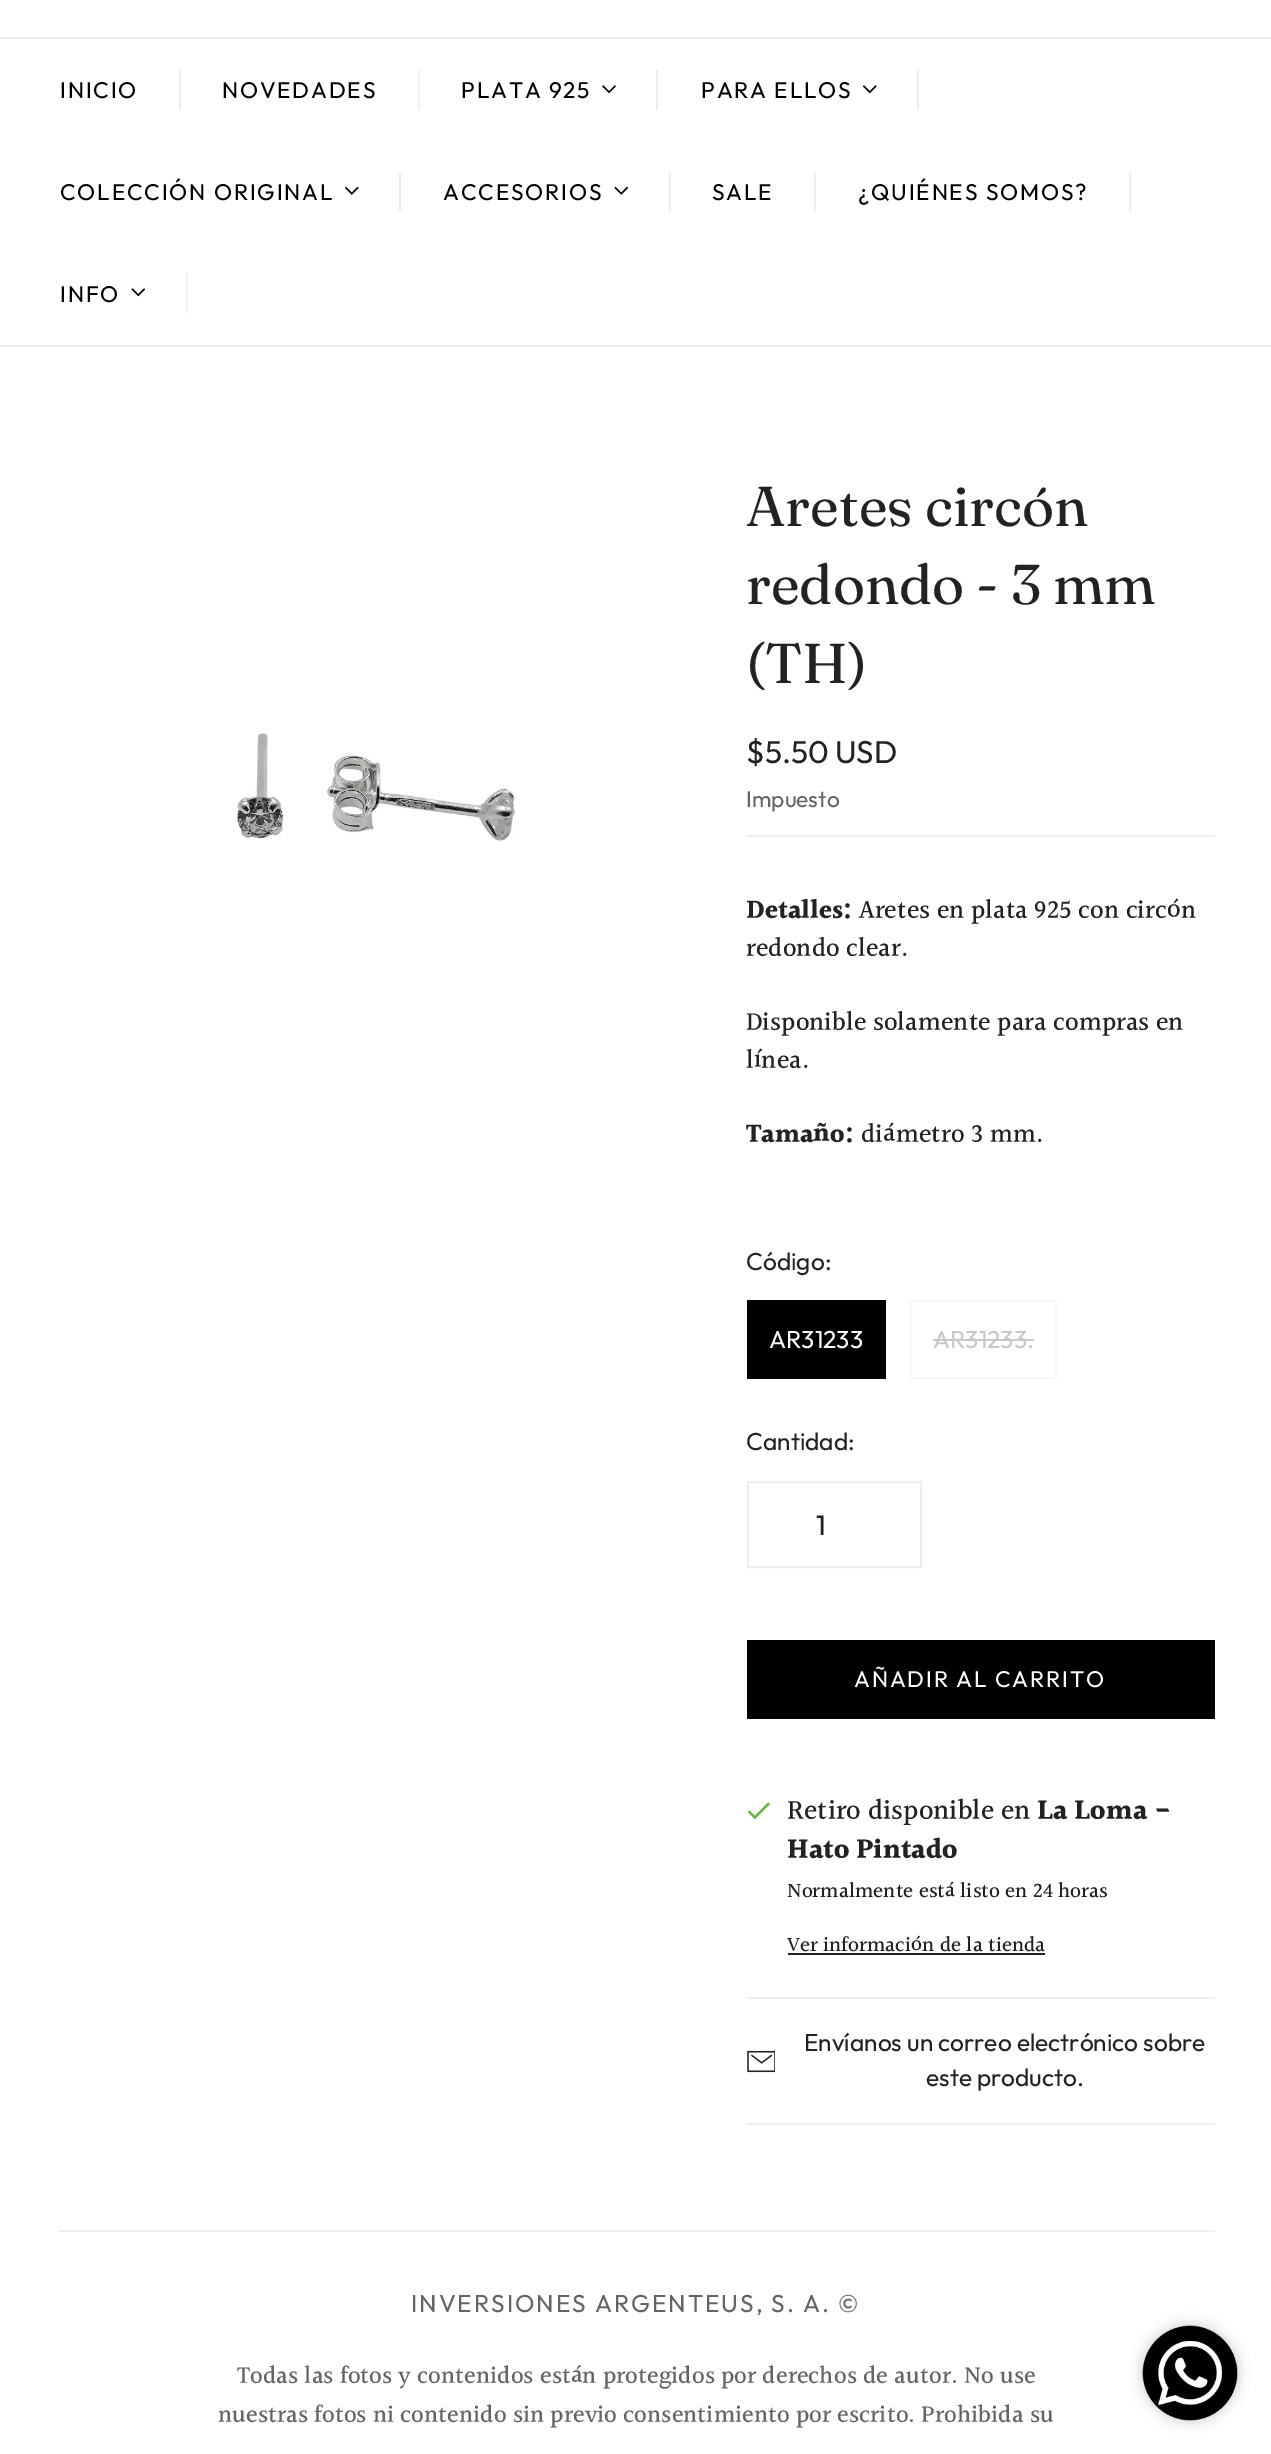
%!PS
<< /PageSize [1271 2454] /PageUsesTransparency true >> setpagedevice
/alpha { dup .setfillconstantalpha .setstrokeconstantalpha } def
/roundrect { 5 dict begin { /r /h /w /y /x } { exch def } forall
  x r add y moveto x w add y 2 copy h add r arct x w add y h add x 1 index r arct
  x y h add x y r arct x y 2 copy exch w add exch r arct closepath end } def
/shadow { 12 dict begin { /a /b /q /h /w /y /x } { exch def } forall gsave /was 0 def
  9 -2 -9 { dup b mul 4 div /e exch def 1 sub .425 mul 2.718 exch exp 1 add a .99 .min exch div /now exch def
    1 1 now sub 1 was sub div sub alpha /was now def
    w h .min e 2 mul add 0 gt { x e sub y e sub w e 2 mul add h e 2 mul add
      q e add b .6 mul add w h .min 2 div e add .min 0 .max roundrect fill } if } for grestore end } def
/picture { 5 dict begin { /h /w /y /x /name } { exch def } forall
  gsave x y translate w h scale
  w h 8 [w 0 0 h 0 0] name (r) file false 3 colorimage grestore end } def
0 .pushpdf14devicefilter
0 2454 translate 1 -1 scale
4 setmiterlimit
1 setgray
0 0 1271 2454 rectfill
0.933 setgray
0 37 1271 2 rectfill
0 345 1271 2 rectfill
/Outfit-Regular [22.75 0 0 -22.75 0 0] selectfont
0 setgray
60 98 moveto 1.8 0 (INICIO) ashow
0.933 setgray
179 70 2 40 rectfill
0 setgray
222 98 moveto 1.8 0 (NOVEDADES) ashow
0.933 setgray
418 70 2 40 rectfill
0 setgray
461 98 moveto 1.8 0 (PLATA 925) ashow
(img1.rgb) 602 85 14 9 picture
0.933 setgray
656 70 2 40 rectfill
0 setgray
701 98 moveto 1.8 0 (PARA ELLOS) ashow
(img2.rgb) 863 85 14 9 picture
0.933 setgray
917 70 2 40 rectfill
0 setgray
60 200 moveto 1.8 0 (COLECCIÓN ORIGINAL) ashow
(img3.rgb) 345 186 14 9 picture
0.933 setgray
399 172 2 40 rectfill
0 setgray
443 200 moveto 1.8 0 (ACCESORIOS) ashow
(img4.rgb) 614 186 14 9 picture
0.933 setgray
669 172 2 40 rectfill
0 setgray
712 200 moveto 1.8 0 (SALE) ashow
0.933 setgray
814 172 2 40 rectfill
0 setgray
858 200 moveto 1.8 0 (¿QUIÉNES SOMOS?) ashow
0.933 setgray
1129 172 2 40 rectfill
0 setgray
60 302 moveto 1.8 0 (INFO) ashow
(img5.rgb) 131 288 14 9 picture
0.933 setgray
186 273 2 40 rectfill
(img6.rgb) 237 733 279 109 picture
/Fraunces-Regular [56 0 0 -56 0 0] selectfont
0.133 setgray
746 526 moveto (Aretes circón) show
746 604 moveto (redondo - 3 mm) show
746 683 moveto (\(TH\)) show
0.933 setgray
747 835 468 2 rectfill
/Outfit-Regular [31.5 0 0 -31.5 0 0] selectfont
0.133 setgray
746 763 moveto ($5.50 USD) show
/Outfit-Regular [22.75 0 0 -22.75 0 0] selectfont
0.392 setgray
746 807 moveto (Impuesto) show
/Halant-Bold [26.25 0 0 -26.25 0 0] selectfont
0.133 setgray
746 919 moveto (Detalles:) show
/Halant-Medium [26.25 0 0 -26.25 0 0] selectfont
859 919 moveto (Aretes en plata 925 con circón) show
746 957 moveto (redondo clear.) show
746 1031 moveto (Disponible solamente para compras en) show
746 1069 moveto (línea.) show
/Halant-Bold [26.25 0 0 -26.25 0 0] selectfont
746 1143 moveto (Tamaño:) show
/Halant-Medium [26.25 0 0 -26.25 0 0] selectfont
861 1143 moveto (diámetro 3 mm.) show
0.933 setgray
747 1997 468 2 rectfill
/Outfit-Regular [24.5 0 0 -24.5 0 0] selectfont
0.133 setgray
746 1270 moveto (Código:) show
0 setgray
747 1300 139 79 rectfill
1 setgray
769 1348 moveto (AR31233) show
0.969 setgray
2 setlinewidth
911 1301 145 77 rectstroke
0.784 setgray
933 1348 moveto (AR31233.) show
933 1339 101 2 rectfill
0.133 setgray
746 1450 moveto (Cantidad:) show
0.933 setgray
748 1482 173 85 rectstroke
/Outfit-Regular [28 0 0 -28 0 0] selectfont
0.133 setgray
816 1535 moveto (1) show
0 setgray
747 1640 468 79 rectfill
/Outfit-Regular [22.75 0 0 -22.75 0 0] selectfont
1 setgray
854 1687 moveto 1.8 0 (AÑADIR AL CARRITO) ashow
(img7.rgb) 747 1802 23 18 picture
/Halant-Medium [28 0 0 -28 0 0] selectfont
0.133 setgray
787 1820 moveto (Retiro disponible en) show
/Halant-Bold [28 0 0 -28 0 0] selectfont
1037 1820 moveto (La Loma -) show
787 1859 moveto (Hato Pintado) show
/Halant-Medium [21 0 0 -21 0 0] selectfont
787 1898 moveto (Normalmente está listo en 24 horas) show
787 1952 moveto (Ver información de la tienda) show
788 1953 257 2 rectfill
0.933 setgray
747 2123 468 2 rectfill
(img8.rgb) 747 2050 28 23 picture
/Outfit-Regular [24.5 0 0 -24.5 0 0] selectfont
0.133 setgray
804 2051 moveto (Envíanos un correo electrónico sobre) show
926 2086 moveto (este producto.) show
0.933 setgray
58 2230 1157 2 rectfill
0.392 setgray
411 2312 moveto 1.95 0 (INVERSIONES ARGENTEUS, S. A. ©) ashow
/Halant-Medium [24.5 0 0 -24.5 0 0] selectfont
237 2384 moveto (Todas las fotos y contenidos están protegidos por derechos de autor. No use) show
218 2423 moveto (nuestras fotos ni contenido sin previo consentimiento por escrito. Prohibida su) show
0.761 setgray
1143 2326 94 94 47 7 1 shadow
(img9.rgb) 1142 2325 96 96 picture
.poppdf14devicefilter showpage
